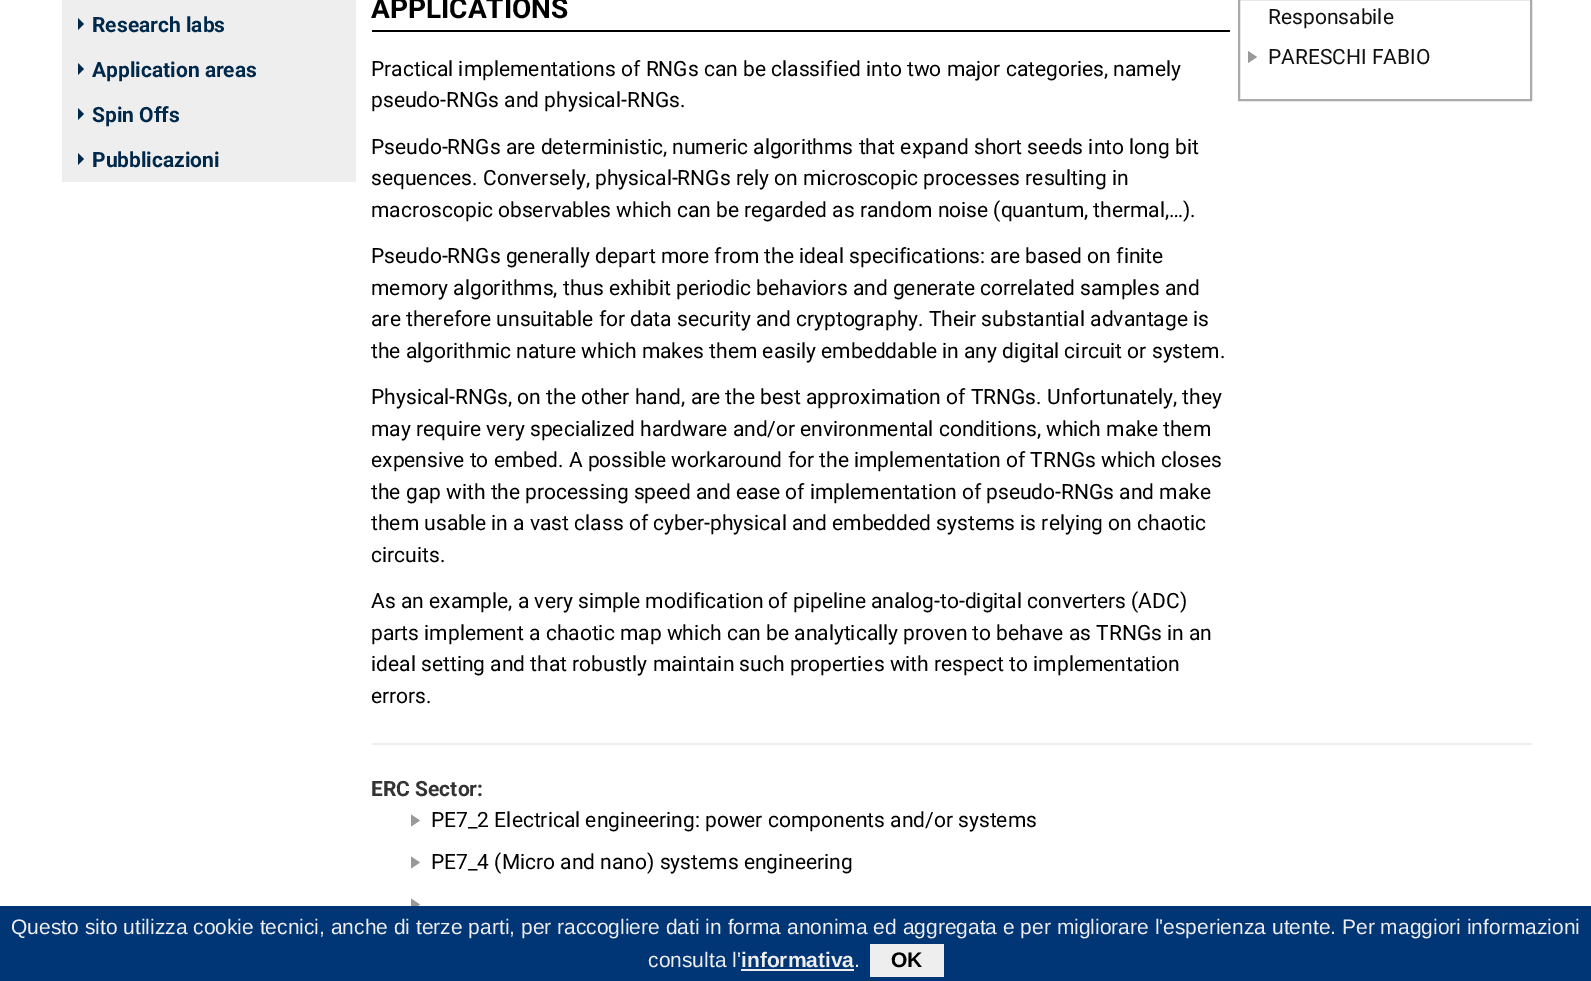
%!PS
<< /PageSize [1591 981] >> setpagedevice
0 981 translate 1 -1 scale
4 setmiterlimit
1 setgray
0 0 1591 981 rectfill
0.933 setgray
62 0 294 182 rectfill
0 0.157 0.294 setrgbcolor
newpath 78 30 moveto 78 18 lineto 84 24 lineto closepath fill
/Roboto-Bold [21 0 0 -21 0 0] selectfont
92 32 moveto (Research labs) show
newpath 78 75 moveto 78 63 lineto 84 69 lineto closepath fill
92 77 moveto (Application areas) show
newpath 78 120 moveto 78 108 lineto 84 114 lineto closepath fill
92 122 moveto (Spin Offs) show
newpath 78 165 moveto 78 153 lineto 84 159 lineto closepath fill
92 167 moveto (Pubblicazioni) show
0 setgray
372 30 858 2 rectfill
/Roboto-Bold [28 0 0 -28 0 0] selectfont
371 18 moveto (APPLICATIONS) show
0.667 setgray
2 setlinewidth
1239 -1 292 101 rectstroke
/Roboto-Regular [21 0 0 -21 0 0] selectfont
0.067 setgray
1268 24 moveto (Responsabile) show
0.6 setgray
newpath 1248 63 moveto 1248 51 lineto 1257 57 lineto closepath fill
0.067 setgray
1268 64 moveto (PARESCHI FABIO) show
0 setgray
371 76 moveto (Practical implementations of RNGs can be classified into two major categories, namely) show
371 107 moveto (pseudo-RNGs and physical-RNGs.) show
371 154 moveto (Pseudo-RNGs are deterministic, numeric algorithms that expand short seeds into long bit) show
371 185 moveto (sequences. Conversely, physical-RNGs rely on microscopic processes resulting in) show
371 217 moveto (macroscopic observables which can be regarded as random noise \(quantum, thermal,…\).) show
371 263 moveto (Pseudo-RNGs generally depart more from the ideal specifications: are based on finite) show
371 295 moveto (memory algorithms, thus exhibit periodic behaviors and generate correlated samples and) show
371 326 moveto (are therefore unsuitable for data security and cryptography. Their substantial advantage is) show
371 358 moveto (the algorithmic nature which makes them easily embeddable in any digital circuit or system.) show
371 404 moveto (Physical-RNGs, on the other hand, are the best approximation of TRNGs. Unfortunately, they) show
371 436 moveto (may require very specialized hardware and/or environmental conditions, which make them) show
371 467 moveto (expensive to embed. A possible workaround for the implementation of TRNGs which closes) show
371 499 moveto (the gap with the processing speed and ease of implementation of pseudo-RNGs and make) show
371 530 moveto (them usable in a vast class of cyber-physical and embedded systems is relying on chaotic) show
371 562 moveto (circuits.) show
371 608 moveto (As an example, a very simple modification of pipeline analog-to-digital converters \(ADC\)) show
371 640 moveto (parts implement a chaotic map which can be analytically proven to behave as TRNGs in an) show
371 671 moveto (ideal setting and that robustly maintain such properties with respect to implementation) show
371 703 moveto (errors.) show
0.933 setgray
372 743 1160 2 rectfill
/Roboto-Bold [21 0 0 -21 0 0] selectfont
0.2 setgray
371 796 moveto (ERC Sector:) show
0.6 setgray
newpath 411 826.5 moveto 411 814.5 lineto 420 820.5 lineto closepath 411 868.5 moveto 411 856.5 lineto 420 862.5 lineto closepath fill
/Roboto-Regular [21 0 0 -21 0 0] selectfont
0 setgray
431 827 moveto (PE7_2 Electrical engineering: power components and/or systems) show
431 869 moveto (PE7_4 \(Micro and nano\) systems engineering) show
0.6 setgray
newpath 411 910.5 moveto 411 898.5 lineto 420 904.5 lineto closepath fill
0 0.208 0.463 setrgbcolor
0 906 1591 75 rectfill
/LiberationSans-Regular [21 0 0 -21 0 0] selectfont
0.933 setgray
11 934 moveto (Questo sito utilizza cookie tecnici, anche di terze parti, per raccogliere dati in forma anonima ed aggregata e per migliorare l'esperienza utente. Per maggiori informazioni) show
648 967 moveto (consulta l') show
/LiberationSans-Bold [21 0 0 -21 0 0] selectfont
741 967 moveto (informativa) show
741 969 113 2 rectfill
/LiberationSans-Regular [21 0 0 -21 0 0] selectfont
854 967 moveto (.) show
870 944 74 33 rectfill
/LiberationSans-Bold [21 0 0 -21 0 0] selectfont
0 setgray
891 967 moveto (OK) show
showpage
